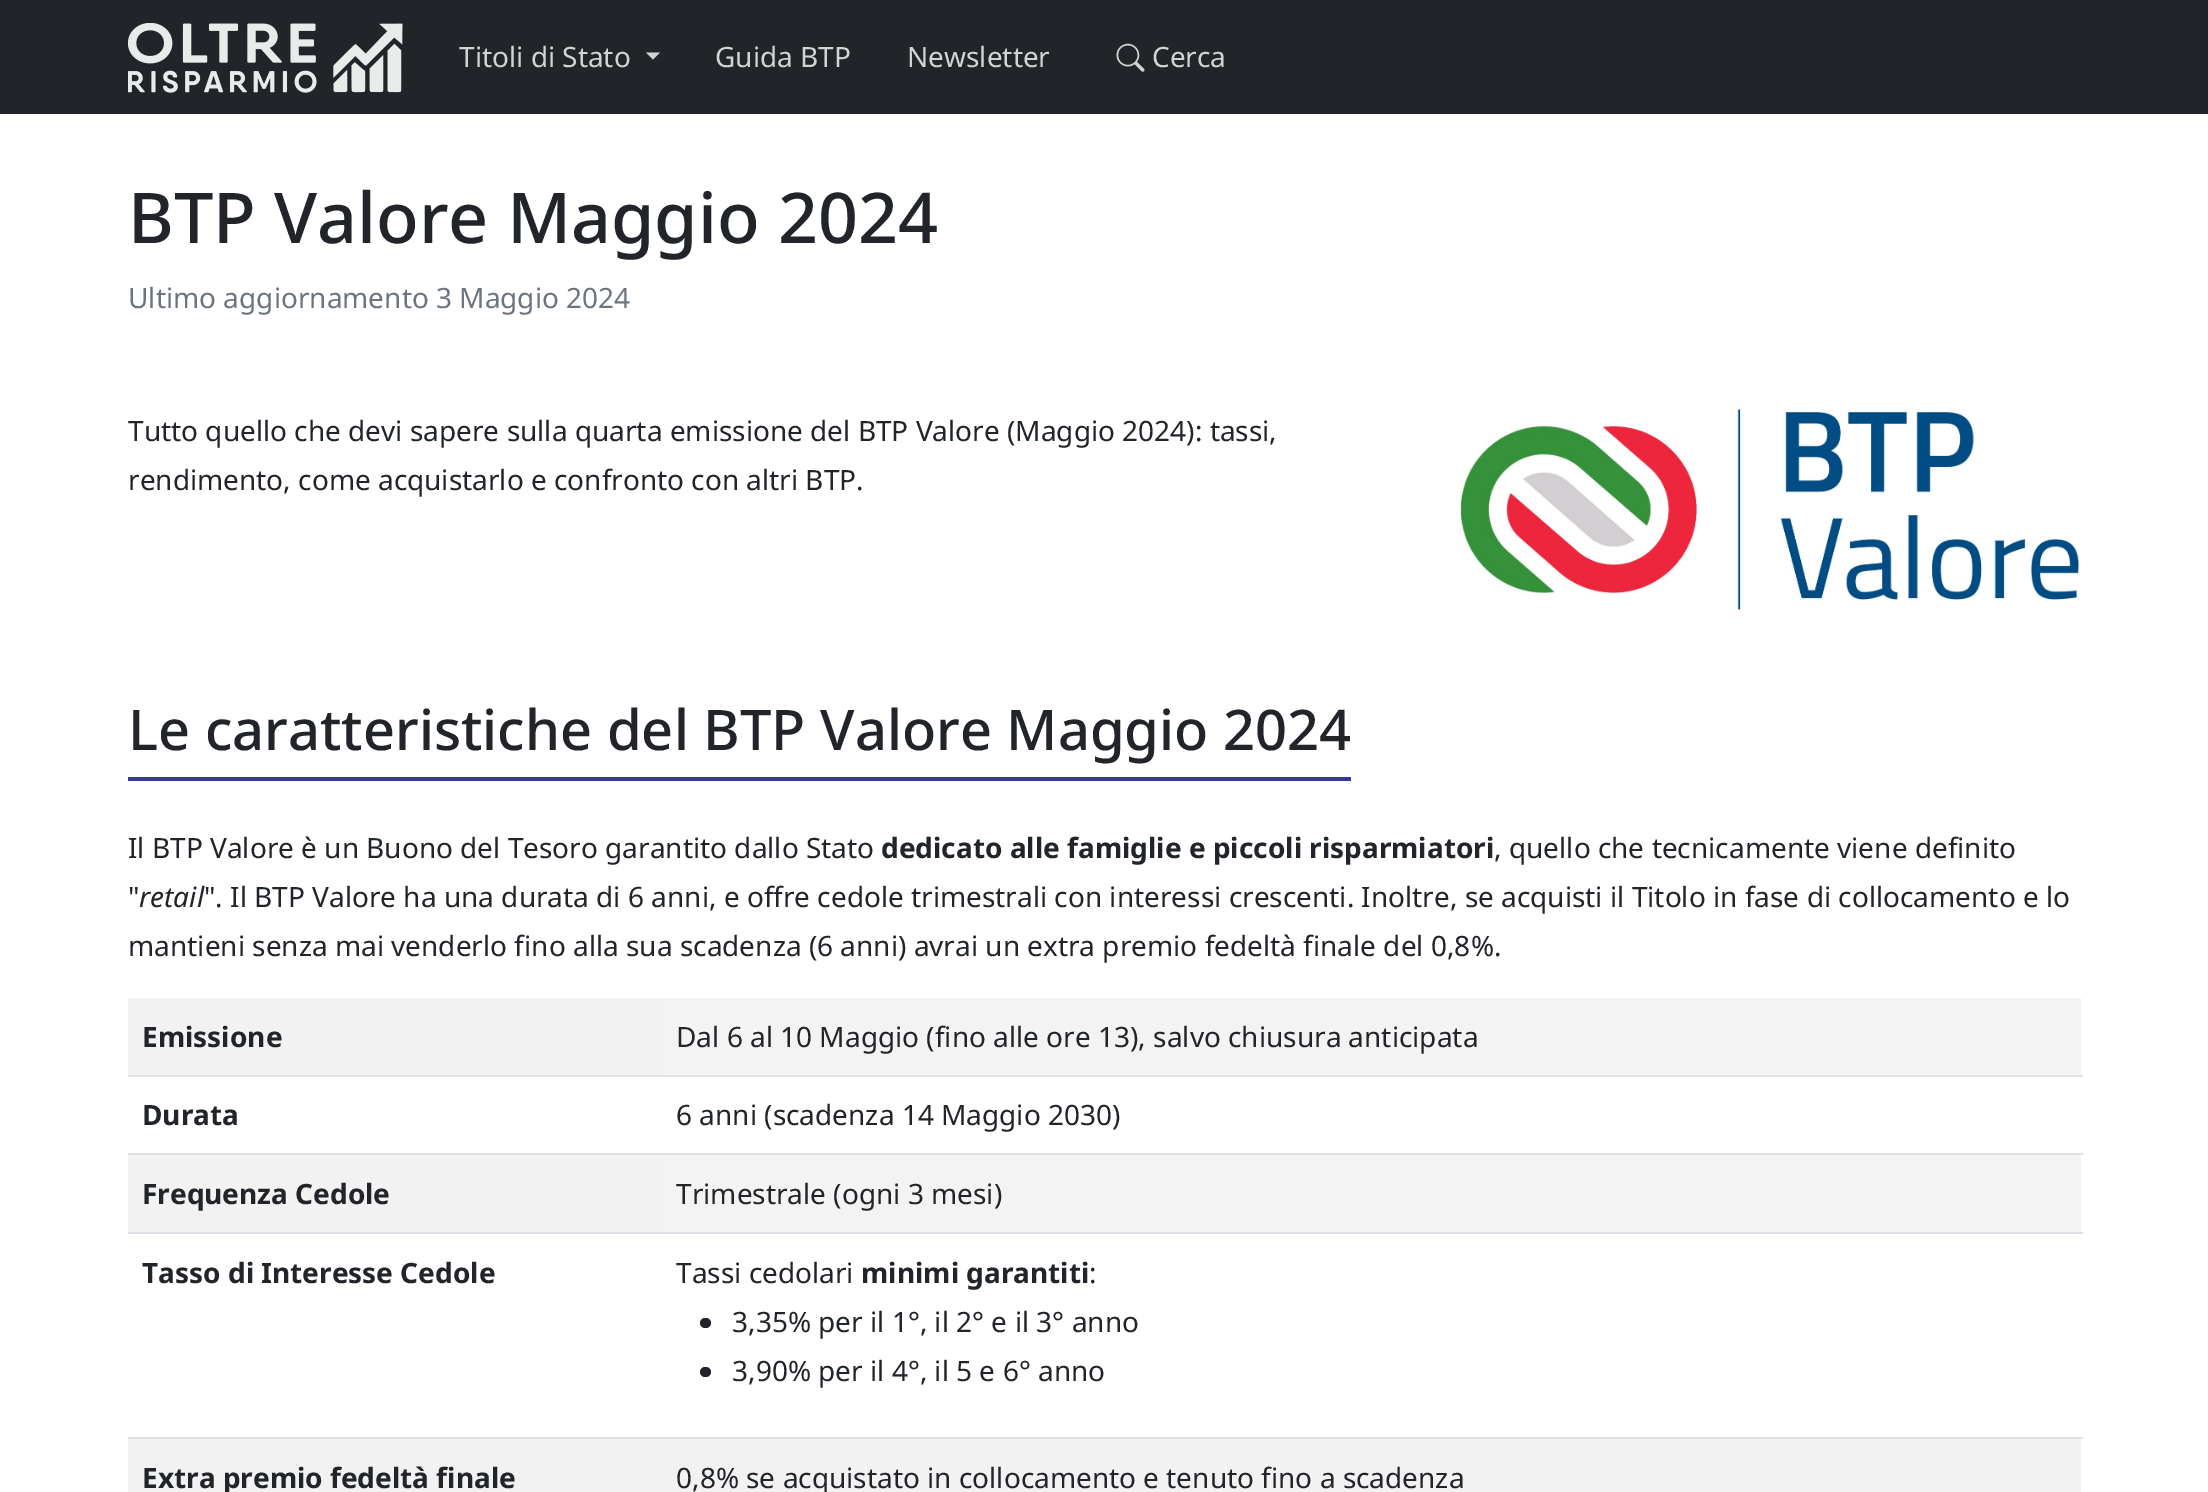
%!PS
<< /PageSize [2208 1492] >> setpagedevice
/roundrect { 5 dict begin { /r /h /w /y /x } { exch def } forall
  x r add y moveto x w add y 2 copy h add r arct x w add y h add x 1 index r arct
  x y h add x y r arct x y 2 copy exch w add exch r arct closepath end } def
/picture { 5 dict begin { /h /w /y /x /name } { exch def } forall
  gsave x y translate w h scale
  w h 8 [w 0 0 h 0 0] name (r) file false 3 colorimage grestore end } def
0 1492 translate 1 -1 scale
4 setmiterlimit
1 setgray
0 0 2208 1492 rectfill
0.129 0.145 0.161 setrgbcolor
0 0 2208 114 rectfill
(img1.rgb) 128 23 275 70 picture
/NotoSans-Regular [28 0 0 -28 0 0] selectfont
0.827 0.827 0.831 setrgbcolor
459 67 moveto (Titoli di Stato) show
newpath 646 52.5 moveto 660 52.5 lineto 653 59.5 lineto closepath fill
715 67 moveto (Guida BTP) show
907 67 moveto (Newsletter) show
(img2.rgb) 1116 43 29 29 picture
1152 67 moveto (Cerca) show
/NotoSans-Medium [70 0 0 -70 0 0] selectfont
0.129 0.145 0.161 setrgbcolor
128 243 moveto (BTP Valore Maggio 2024) show
/NotoSans-Regular [28 0 0 -28 0 0] selectfont
0.424 0.459 0.49 setrgbcolor
128 308 moveto (Ultimo aggiornamento 3 Maggio 2024) show
0.129 0.145 0.161 setrgbcolor
128 441 moveto (Tutto quello che devi sapere sulla quarta emissione del BTP Valore \(Maggio 2024\): tassi,) show
128 490 moveto (rendimento, come acquistarlo e confronto con altri BTP.) show
(img3.rgb) 1460 406 619 204 picture
0.204 0.224 0.592 setrgbcolor
128 777 1223 4 rectfill
/NotoSans-Medium [56 0 0 -56 0 0] selectfont
0.129 0.145 0.161 setrgbcolor
128 750 moveto (Le caratteristiche del BTP Valore Maggio 2024) show
/NotoSans-Regular [28 0 0 -28 0 0] selectfont
128 858 moveto (Il BTP Valore è un Buono del Tesoro garantito dallo Stato) show
/NotoSans-Bold [28 0 0 -28 0 0] selectfont
881 858 moveto (dedicato alle famiglie e piccoli risparmiatori) show
/NotoSans-Regular [28 0 0 -28 0 0] selectfont
1494 858 moveto (, quello che tecnicamente viene definito) show
128 907 moveto (") show
/NotoSans-Italic [28 0 0 -28 0 0] selectfont
139 907 moveto (retail) show
/NotoSans-Regular [28 0 0 -28 0 0] selectfont
204 907 moveto (". Il BTP Valore ha una durata di 6 anni, e offre cedole trimestrali con interessi crescenti. Inoltre, se acquisti il Titolo in fase di collocamento e lo) show
128 956 moveto (mantieni senza mai venderlo fino alla sua scadenza \(6 anni\) avrai un extra premio fedeltà finale del 0,8%.) show
0.949 setgray
128 998 534 77 rectfill
/NotoSans-Bold [28 0 0 -28 0 0] selectfont
0.129 0.145 0.161 setrgbcolor
142 1047 moveto (Emissione) show
0.953 setgray
662 998 1419 77 rectfill
0.871 0.886 0.902 setrgbcolor
128 1075 1955 2 rectfill
/NotoSans-Regular [28 0 0 -28 0 0] selectfont
0.129 0.145 0.161 setrgbcolor
676 1047 moveto (Dal 6 al 10 Maggio \(fino alle ore 13\), salvo chiusura anticipata) show
/NotoSans-Bold [28 0 0 -28 0 0] selectfont
142 1125 moveto (Durata) show
0.871 0.886 0.902 setrgbcolor
128 1153 1955 2 rectfill
/NotoSans-Regular [28 0 0 -28 0 0] selectfont
0.129 0.145 0.161 setrgbcolor
676 1125 moveto (6 anni \(scadenza 14 Maggio 2030\)) show
0.949 setgray
128 1155 534 77 rectfill
/NotoSans-Bold [28 0 0 -28 0 0] selectfont
0.129 0.145 0.161 setrgbcolor
142 1204 moveto (Frequenza Cedole) show
0.953 setgray
662 1155 1419 77 rectfill
0.871 0.886 0.902 setrgbcolor
128 1232 1955 2 rectfill
/NotoSans-Regular [28 0 0 -28 0 0] selectfont
0.129 0.145 0.161 setrgbcolor
676 1204 moveto (Trimestrale \(ogni 3 mesi\)) show
/NotoSans-Bold [28 0 0 -28 0 0] selectfont
142 1283 moveto (Tasso di Interesse Cedole) show
0.871 0.886 0.902 setrgbcolor
128 1437 1955 2 rectfill
/NotoSans-Regular [28 0 0 -28 0 0] selectfont
0.129 0.145 0.161 setrgbcolor
676 1283 moveto (Tassi cedolari) show
/NotoSans-Bold [28 0 0 -28 0 0] selectfont
861 1283 moveto (minimi garantiti) show
/NotoSans-Regular [28 0 0 -28 0 0] selectfont
1089 1283 moveto (:) show
700 1318 11 10 5 roundrect fill
732 1332 moveto (3,35% per il 1°, il 2° e il 3° anno) show
700 1367 11 10 5 roundrect fill
732 1381 moveto (3,90% per il 4°, il 5 e 6° anno) show
0.949 setgray
128 1439 1953 53 rectfill
/NotoSans-Bold [28 0 0 -28 0 0] selectfont
0.129 0.145 0.161 setrgbcolor
142 1488 moveto (Extra premio fedeltà finale) show
/NotoSans-Regular [28 0 0 -28 0 0] selectfont
676 1488 moveto (0,8% se acquistato in collocamento e tenuto fino a scadenza) show
showpage
